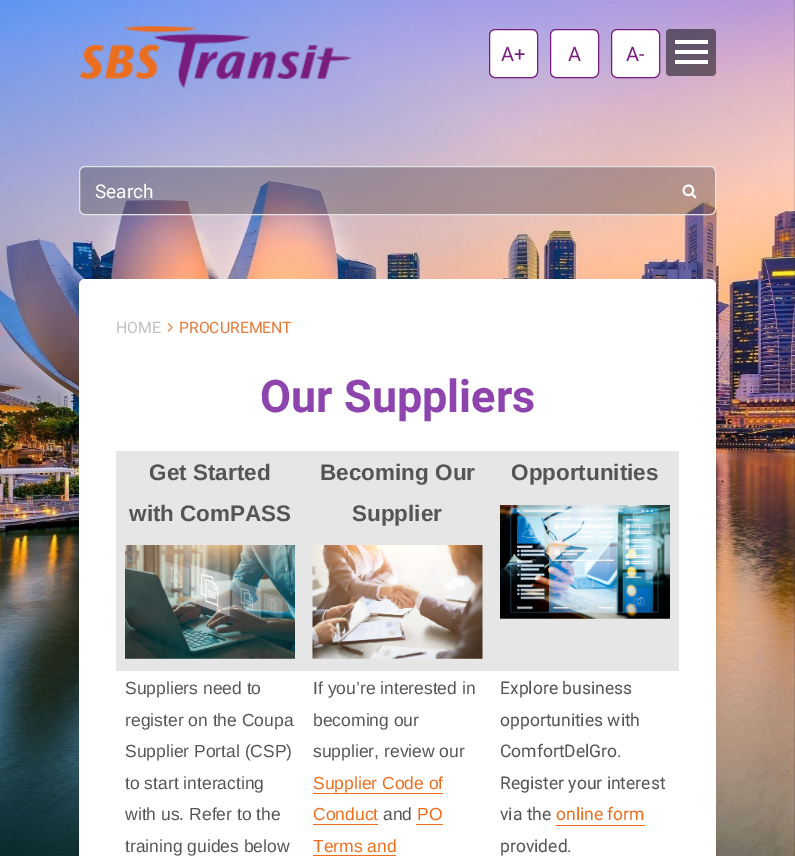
%!PS
<< /PageSize [795 856] /PageUsesTransparency true >> setpagedevice
/alpha { dup .setfillconstantalpha .setstrokeconstantalpha } def
/roundrect { 5 dict begin { /r /h /w /y /x } { exch def } forall
  x r add y moveto x w add y 2 copy h add r arct x w add y h add x 1 index r arct
  x y h add x y r arct x y 2 copy exch w add exch r arct closepath end } def
/picture { 5 dict begin { /h /w /y /x /name } { exch def } forall
  gsave x y translate w h scale
  w h 8 [w 0 0 h 0 0] name (r) file false 3 colorimage grestore end } def
0 .pushpdf14devicefilter
0 856 translate 1 -1 scale
4 setmiterlimit
1 setgray
0 0 795 856 rectfill
(img1.rgb) 0 0 795 856 picture
(img2.rgb) 79 26 273 62 picture
489.5 29.5 48 48 5.5 roundrect gsave fill grestore
0.471 0.114 0.494 setrgbcolor
stroke
/Roboto-Regular [20 0 0 -20 0 0] selectfont
501 61 moveto (A+) show
1 setgray
550.5 29.5 48 48 5.5 roundrect gsave fill grestore
0.471 0.114 0.494 setrgbcolor
stroke
568 61 moveto (A) show
1 setgray
611.5 29.5 48 48 5.5 roundrect gsave fill grestore
0.471 0.114 0.494 setrgbcolor
stroke
626 61 moveto (A-) show
0.5 alpha
0 setgray
666 29 50 47 4 roundrect fill
1 alpha
1 setgray
675 40 33 4 rectfill
675 50 33 4 rectfill
675 60 33 4 rectfill
0.3 alpha
0.165 0.141 0.169 setrgbcolor
79.5 166.5 636 48 5.5 roundrect fill
1 alpha
0.89 setgray
79.5 166.5 636 48 5.5 roundrect stroke
/Roboto-Regular [19 0 0 -19 0 0] selectfont
1 setgray
95 198 moveto (Search) show
(img3.rgb) 682 184 15 15 picture
79 279 637 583 6 roundrect fill
/Roboto-Regular [15.75 0 0 -15.75 0 0] selectfont
0.753 setgray
116 333 moveto (HOME) show
(img4.rgb) 167 323 6 9 picture
0.894 0.482 0.22 setrgbcolor
179 333 moveto (PROCUREMENT) show
/Roboto-Bold [45 0 0 -45 0 0] selectfont
0.557 0.267 0.678 setrgbcolor
260 412 moveto (Our Suppliers) show
0.906 0.902 0.902 setrgbcolor
116 451 563 220 rectfill
/LiberationSans-Bold [22.5 0 0 -22.5 0 0] selectfont
0.333 setgray
149 480 moveto (Get Started) show
129 521 moveto (with ComPASS) show
(img5.rgb) 125 545 170 114 picture
320 480 moveto (Becoming Our) show
352 521 moveto (Supplier) show
(img6.rgb) 312 545 171 114 picture
511 480 moveto (Opportunities) show
(img7.rgb) 500 505 170 114 picture
/LiberationSans-Regular [17.5 0 0 -17.5 0 0] selectfont
125 694 moveto (Suppliers need to) show
125 726 moveto (register on the Coupa) show
125 757 moveto (Supplier Portal \(CSP\)) show
125 789 moveto (to start interacting) show
125 820 moveto (with us. Refer to the) show
125 852 moveto (training guides below) show
313 694 moveto (If you’re interested in) show
313 726 moveto (becoming our) show
313 757 moveto (supplier, review our) show
0.922 0.431 0.122 setrgbcolor
313 789 moveto (Supplier Code of) show
313 793 130 1 rectfill
313 820 moveto (Conduct) show
313 824 65 1 rectfill
0.333 setgray
383 820 moveto (and) show
0.922 0.431 0.122 setrgbcolor
417 820 moveto (PO) show
416 824 27 1 rectfill
313 852 moveto (Terms and) show
313 855 83 1 rectfill
/Roboto-Regular [17.5 0 0 -17.5 0 0] selectfont
0.333 setgray
500 694 moveto (Explore business) show
500 726 moveto (opportunities with) show
500 757 moveto (ComfortDelGro.) show
500 789 moveto (Register your interest) show
500 820 moveto (via the) show
0.922 0.431 0.122 setrgbcolor
556 820 moveto (online form) show
556 825 89 1 rectfill
0.333 setgray
500 852 moveto (provided.) show
.poppdf14devicefilter showpage
